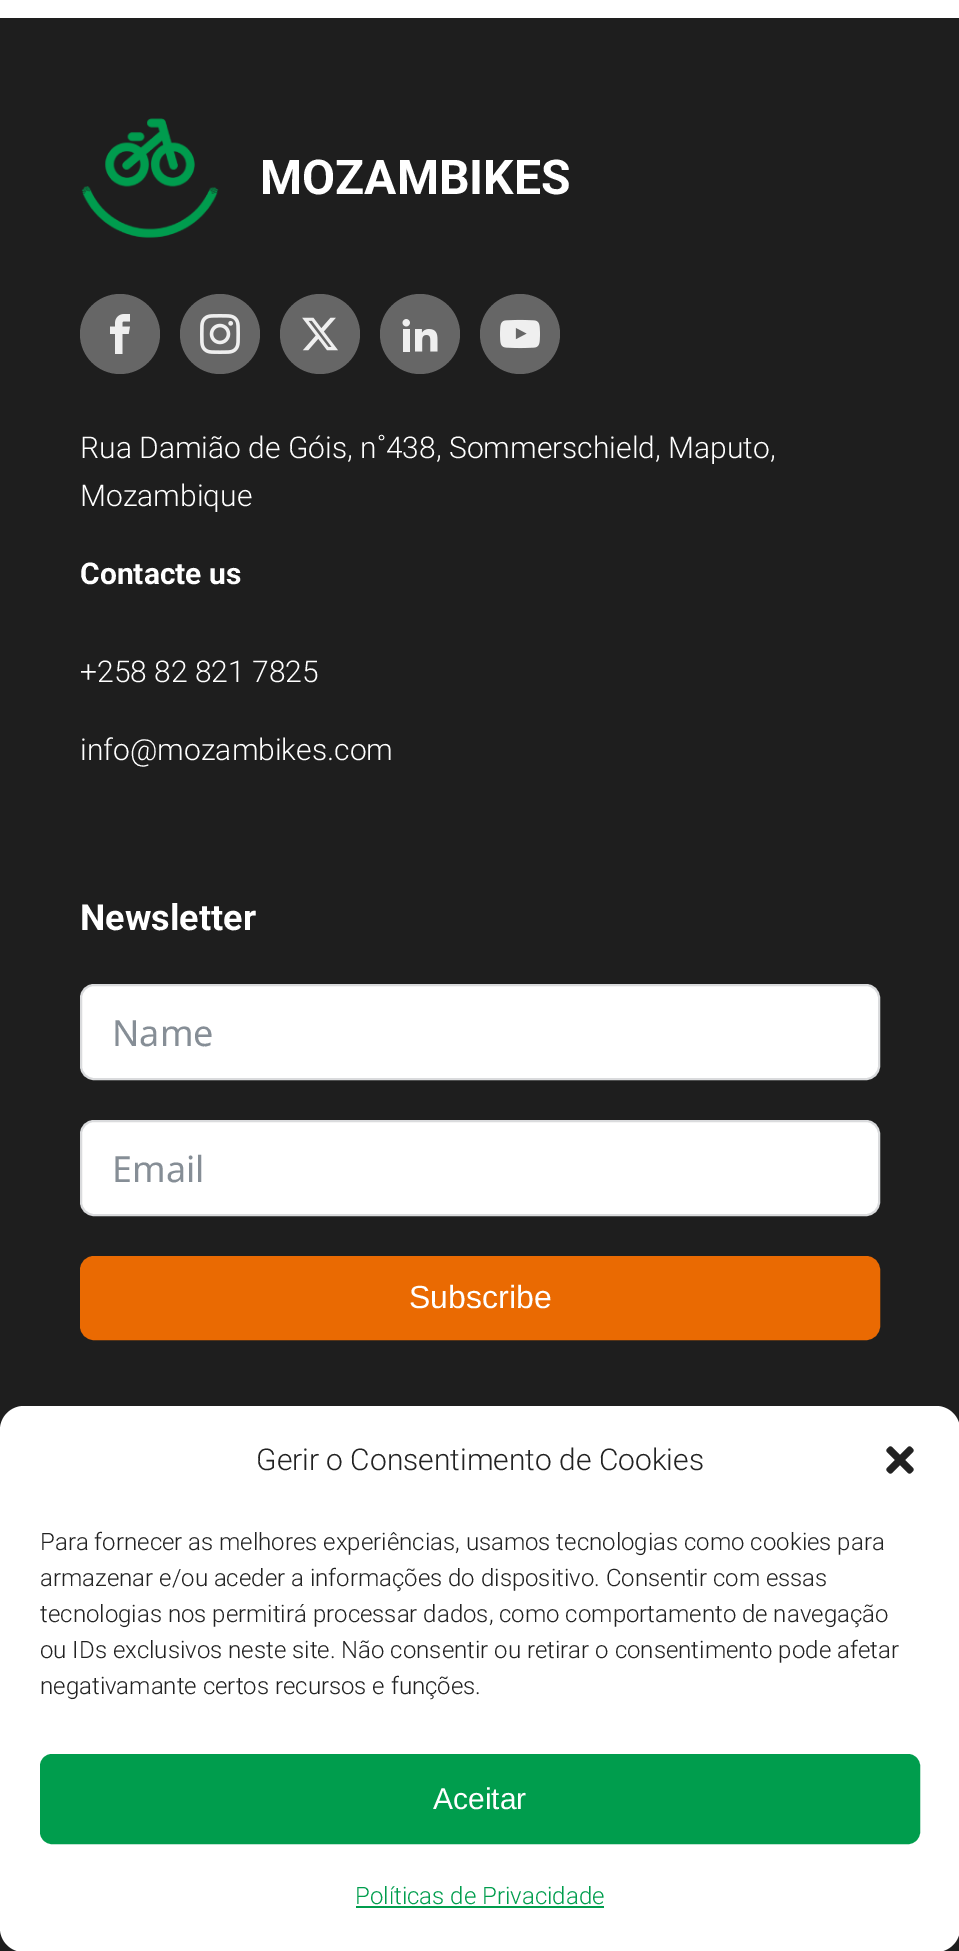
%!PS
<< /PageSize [959 1951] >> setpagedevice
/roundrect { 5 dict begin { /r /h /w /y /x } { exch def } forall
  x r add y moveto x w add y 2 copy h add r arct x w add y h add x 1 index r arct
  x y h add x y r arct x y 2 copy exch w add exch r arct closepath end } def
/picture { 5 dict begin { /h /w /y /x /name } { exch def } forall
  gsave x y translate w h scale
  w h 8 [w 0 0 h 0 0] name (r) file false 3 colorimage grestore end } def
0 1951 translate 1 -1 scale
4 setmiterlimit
1 setgray
0 0 959 1951 rectfill
0.118 setgray
0 18 959 1933 rectfill
(img1.rgb) 81 118 138 120 picture
/Roboto-Bold [48 0 0 -48 0 0] selectfont
1 setgray
260 194 moveto (MOZAMBIKES) show
0.4 setgray
newpath 120 334 40 0 360 arc closepath fill
(img2.rgb) 110 314 20 40 picture
newpath 220 334 40 0 360 arc closepath fill
(img3.rgb) 200 314 40 40 picture
newpath 320 334 40 0 360 arc closepath fill
(img4.rgb) 302 317 36 34 picture
newpath 420 334 40 0 360 arc closepath fill
(img5.rgb) 402 319 36 33 picture
newpath 520 334 40 0 360 arc closepath fill
(img6.rgb) 500 319 40 30 picture
/Roboto-Light [30 0 0 -30 0 0] selectfont
1 setgray
80 458 moveto (Rua Damião de Góis, n˚438, Sommerschield, Maputo,) show
80 506 moveto (Mozambique) show
/Roboto-Bold [30 0 0 -30 0 0] selectfont
80 584 moveto (Contacte us) show
/Roboto-Light [30 0 0 -30 0 0] selectfont
80 682 moveto (+258 82 821 7825) show
80 760 moveto (info@mozambikes.com) show
/Roboto-Bold [36 0 0 -36 0 0] selectfont
80 930 moveto (Newsletter) show
81 985 798 94 13 roundrect gsave fill grestore
0.855 0.859 0.867 setrgbcolor
2 setlinewidth
stroke
/NotoSans-Regular [36 0 0 -36 0 0] selectfont
0.525 0.557 0.588 setrgbcolor
112 1046 moveto (Name) show
1 setgray
81 1121 798 94 13 roundrect gsave fill grestore
0.855 0.859 0.867 setrgbcolor
stroke
0.525 0.557 0.588 setrgbcolor
112 1182 moveto (Email) show
0.918 0.416 0.008 setrgbcolor
81 1257 798 82 13 roundrect gsave fill grestore
stroke
/LiberationSans-Regular [32 0 0 -32 0 0] selectfont
1 setgray
409 1308 moveto (Subscribe) show
0 1406 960 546 24 roundrect fill
/Roboto-Light [30 0 0 -30 0 0] selectfont
0.133 setgray
256 1470 moveto (Gerir o Consentimento de Cookies) show
(img7.rgb) 886 1446 28 28 picture
/Roboto-Light [24 0 0 -24 0 0] selectfont
40 1550 moveto (Para fornecer as melhores experiências, usamos tecnologias como cookies para) show
40 1586 moveto (armazenar e/ou aceder a informações do dispositivo. Consentir com essas) show
40 1622 moveto (tecnologias nos permitirá processar dados, como comportamento de navegação) show
40 1658 moveto (ou IDs exclusivos neste site. Não consentir ou retirar o consentimento pode afetar) show
40 1694 moveto (negativamante certos recursos e funções.) show
0 0.616 0.302 setrgbcolor
41 1755 878 88 11 roundrect gsave fill grestore
stroke
/LiberationSans-Regular [30 0 0 -30 0 0] selectfont
1 setgray
433 1809 moveto (Aceitar) show
/Roboto-Light [24 0 0 -24 0 0] selectfont
0 0.616 0.302 setrgbcolor
355 1904 moveto (Políticas de Privacidade) show
356 1906 248 2 rectfill
showpage
